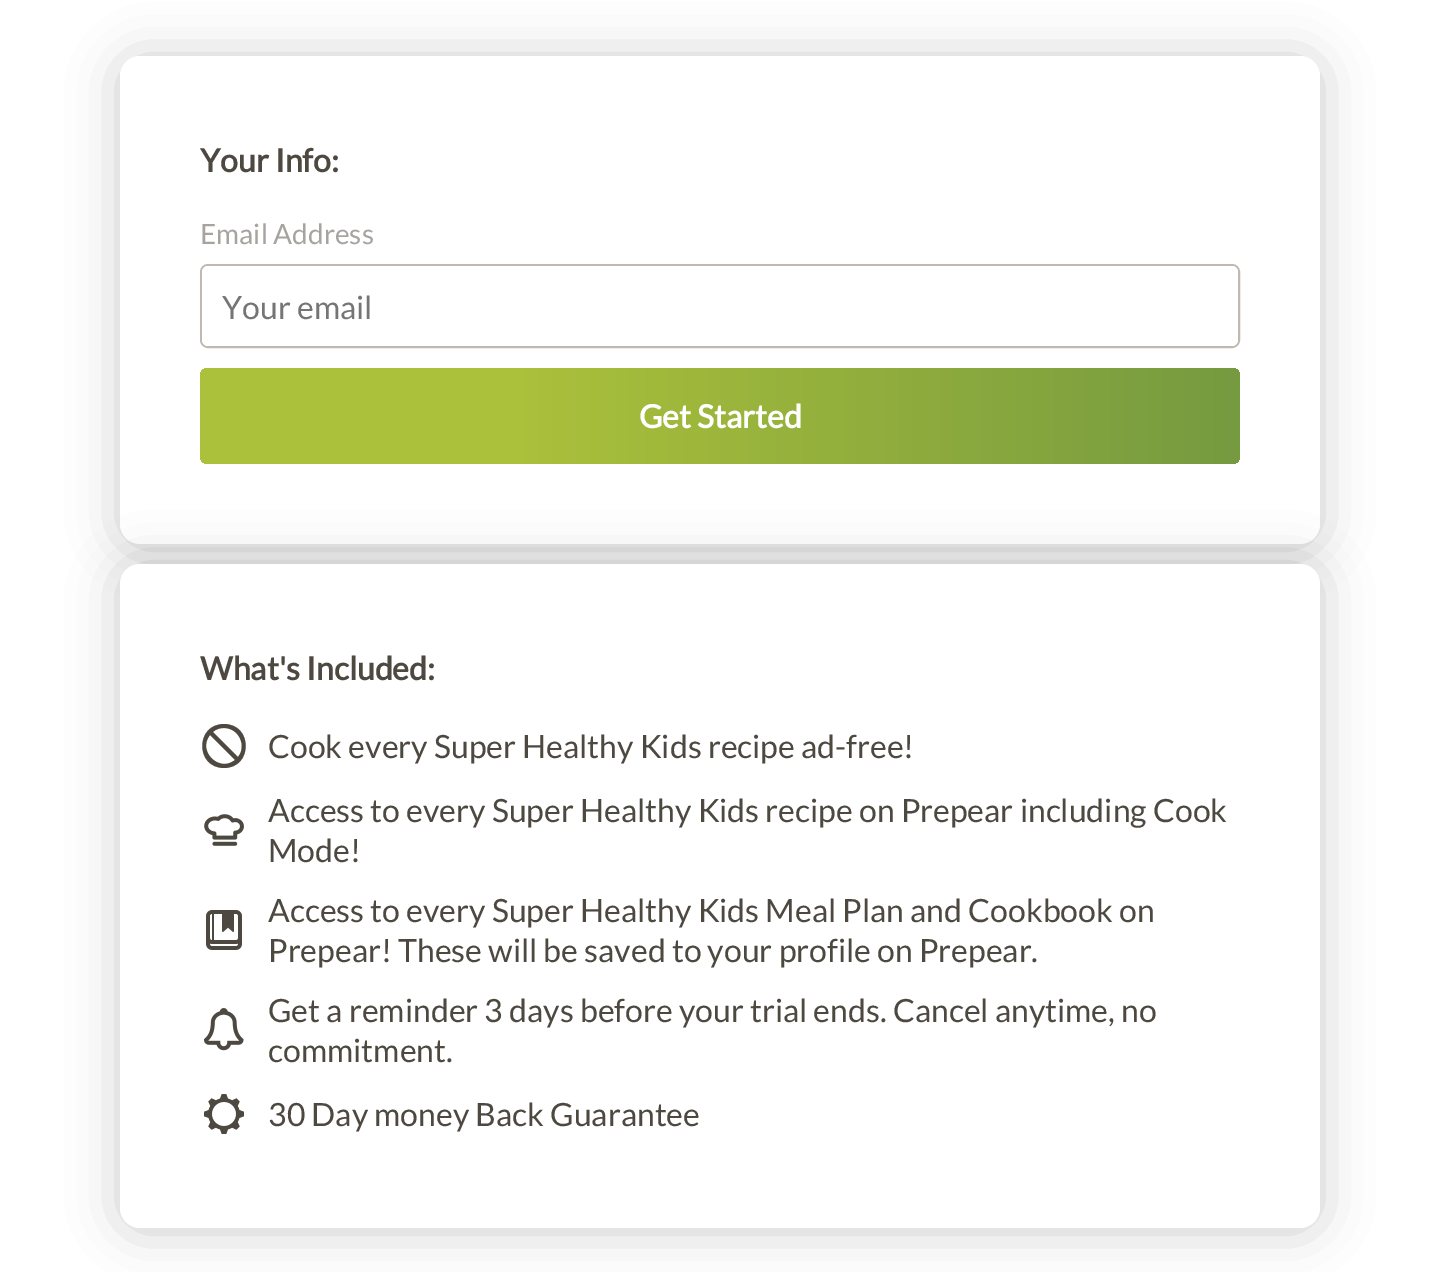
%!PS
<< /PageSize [1439 1272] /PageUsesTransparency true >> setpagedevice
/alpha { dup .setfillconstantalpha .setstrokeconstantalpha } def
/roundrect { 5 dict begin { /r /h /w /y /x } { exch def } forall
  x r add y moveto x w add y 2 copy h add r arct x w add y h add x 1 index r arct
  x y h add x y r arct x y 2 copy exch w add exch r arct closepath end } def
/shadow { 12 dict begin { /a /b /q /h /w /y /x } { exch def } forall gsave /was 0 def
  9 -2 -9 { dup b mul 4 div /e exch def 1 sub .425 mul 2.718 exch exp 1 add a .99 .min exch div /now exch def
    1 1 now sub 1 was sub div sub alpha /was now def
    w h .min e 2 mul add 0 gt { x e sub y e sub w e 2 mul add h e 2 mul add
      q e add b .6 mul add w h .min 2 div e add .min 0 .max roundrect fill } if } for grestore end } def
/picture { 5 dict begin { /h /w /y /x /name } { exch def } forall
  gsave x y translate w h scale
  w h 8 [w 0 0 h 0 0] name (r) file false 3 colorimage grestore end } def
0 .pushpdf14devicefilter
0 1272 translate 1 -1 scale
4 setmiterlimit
1 setgray
0 0 1439 1272 rectfill
0 setgray
120 58 1200 488 20 25 0.2 shadow
1 setgray
120 56 1200 488 20 roundrect fill
/Lato-Bold [32 0 0 -32 0 0] selectfont
0.302 0.282 0.251 setrgbcolor
200 172 moveto (Your Info:) show
/Lato-Regular [28 0 0 -28 0 0] selectfont
0.655 0.643 0.627 setrgbcolor
200 244 moveto (Email Address) show
0.749 0.725 0.698 setrgbcolor
2 setlinewidth
201 265 1038 82 7 roundrect stroke
1 setgray
202 266 1036 80 6 roundrect fill
/Lato-Regular [32 0 0 -32 0 0] selectfont
0.459 setgray
222 319 moveto (Your email) show
gsave 200 368 1040 96 8 roundrect clip newpath
<< /ShadingType 2 /ColorSpace /DeviceRGB /Coords [200 416 1240 416] /Extend [true true] /Function << /FunctionType 3 /Domain [0 1] /Functions [<< /FunctionType 2 /Domain [0 1] /C0 [0.675 0.757 0.231] /C1 [0.675 0.757 0.231] /N 1 >> << /FunctionType 2 /Domain [0 1] /C0 [0.675 0.757 0.231] /C1 [0.459 0.604 0.251] /N 1 >>] /Bounds [0.3] /Encode [0 1 0 1] >> >> shfill grestore
/Lato-Bold [32 0 0 -32 0 0] selectfont
1 setgray
639 428 moveto (Get Started) show
0 setgray
120 566 1200 664 20 25 0.2 shadow
1 setgray
120 564 1200 664 20 roundrect fill
0.302 0.282 0.251 setrgbcolor
200 680 moveto (What's Included:) show
newpath 224 724 moveto 253 724 253 768 224 768 curveto 195 768 195 724 224 724 curveto closepath 210 735 moveto 197 751 219 773 235 760 curveto closepath 224 728 moveto 220 728 216 729 213 732 curveto 238 757 lineto 247 746 239 728 224 728 curveto closepath eofill
/Lato-Regular [32 0 0 -32 0 0] selectfont
268 758 moveto (Cook every Super Healthy Kids recipe ad-free!) show
(img1.rgb) 204 814 40 32 picture
268 822 moveto (Access to every Super Healthy Kids recipe on Prepear including Cook) show
268 862 moveto (Mode!) show
(img2.rgb) 206 910 36 40 picture
268 922 moveto (Access to every Super Healthy Kids Meal Plan and Cookbook on) show
268 962 moveto (Prepear! These will be saved to your profile on Prepear.) show
(img3.rgb) 204 1008 40 43 picture
268 1022 moveto (Get a reminder 3 days before your trial ends. Cancel anytime, no) show
268 1062 moveto (commitment.) show
(img4.rgb) 204 1094 40 40 picture
268 1126 moveto (30 Day money Back Guarantee) show
.poppdf14devicefilter showpage
